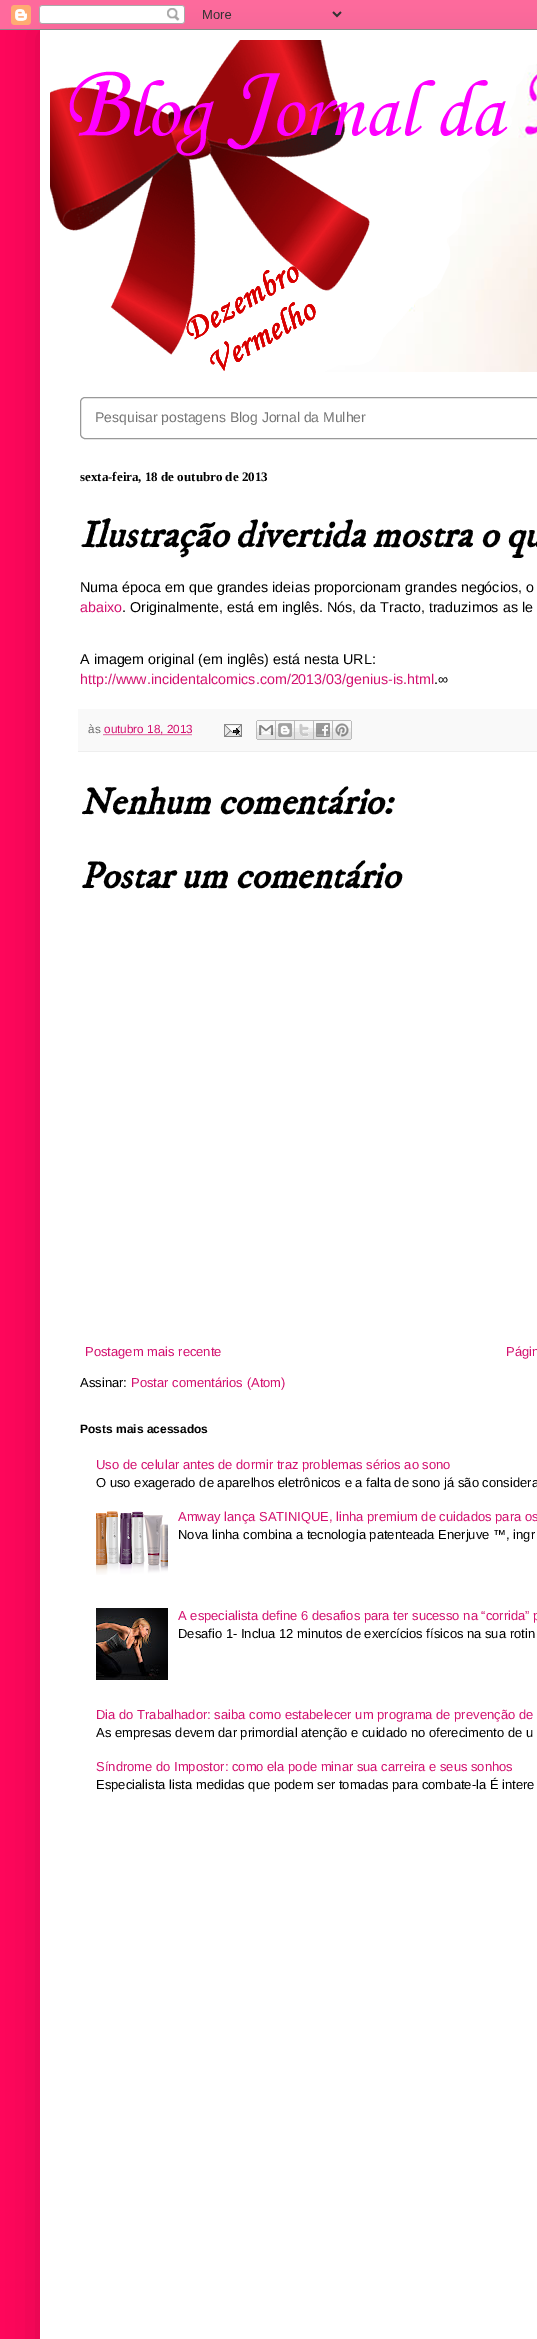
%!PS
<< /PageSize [537 2339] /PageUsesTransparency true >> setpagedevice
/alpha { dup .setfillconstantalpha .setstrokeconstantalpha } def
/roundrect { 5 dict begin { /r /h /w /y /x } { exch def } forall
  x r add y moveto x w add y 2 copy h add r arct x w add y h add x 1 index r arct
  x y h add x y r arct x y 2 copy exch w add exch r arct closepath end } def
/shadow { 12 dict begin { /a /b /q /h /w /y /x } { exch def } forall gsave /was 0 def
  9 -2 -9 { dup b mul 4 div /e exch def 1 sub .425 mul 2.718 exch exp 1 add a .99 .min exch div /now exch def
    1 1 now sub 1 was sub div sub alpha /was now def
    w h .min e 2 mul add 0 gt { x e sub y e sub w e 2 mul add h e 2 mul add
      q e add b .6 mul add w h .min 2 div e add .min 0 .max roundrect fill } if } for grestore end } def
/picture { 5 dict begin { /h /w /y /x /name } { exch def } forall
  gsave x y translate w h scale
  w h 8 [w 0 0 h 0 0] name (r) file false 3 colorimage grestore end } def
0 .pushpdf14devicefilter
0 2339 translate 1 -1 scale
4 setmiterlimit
1 0.024 0.357 setrgbcolor
0 0 537 2339 rectfill
0 setgray
40 30 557 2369 0 20 0.15 shadow
(img1.rgb) 0 0 537 30 picture
1 setgray
40 30 497 2309 rectfill
(img2.rgb) 50 40 487 332 picture
0.6 setgray
80.5 397.5 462 41 4.5 roundrect stroke
/LiberationSans-Regular [14 0 0 -14 0 0] selectfont
0.459 setgray
95 422 moveto (Pesquisar postagens Blog Jornal da Mulher) show
/LiberationSerif-Bold [13 0 0 -13 0 0] selectfont
0 setgray
80 481 moveto (sexta-feira, 18 de outubro de 2013) show
/IMFELLDWPica-BoldItalic [37 0 0 -37 0 0] selectfont
80 547 moveto (Ilustração divertida mostra o qu) show
/LiberationSans-Regular [14.3 0 0 -14.3 0 0] selectfont
80 592 moveto (Numa época em que grandes ideias proporcionam grandes negócios, o) show
0.827 0.067 0.435 setrgbcolor
80 612 moveto (abaixo) show
0 setgray
122 612 moveto (. Originalmente, está em inglês. Nós, da Tracto, traduzimos as le) show
80 664 moveto (A imagem original \(em inglês\) está nesta URL:) show
0.827 0.067 0.435 setrgbcolor
80 684 moveto (http://www.incidentalcomics.com/2013/03/genius-is.html) show
0 setgray
434 684 moveto (.∞) show
0.976 setgray
78 709 459 42 rectfill
0.933 setgray
78 751 459 1 rectfill
/LiberationSans-Regular [11.75 0 0 -11.75 0 0] selectfont
0.416 setgray
88 733 moveto (às) show
0.827 0.067 0.435 setrgbcolor
[1 1] 0 setdash
newpath 103.5 734.5 moveto 192 734.5 lineto stroke
104 733 moveto (outubro 18, 2013) show
(img3.rgb) 224 724 18 13 picture
(img4.rgb) 256 720 20 20 picture
(img5.rgb) 276 720 19 20 picture
(img6.rgb) 295 720 19 20 picture
(img7.rgb) 314 720 19 20 picture
(img8.rgb) 333 720 19 20 picture
/IMFELLDWPica-BoldItalic [37 0 0 -37 0 0] selectfont
0 setgray
80 814 moveto (Nenhum comentário:) show
80 888 moveto (Postar um comentário) show
/LiberationSans-Regular [13 0 0 -13 0 0] selectfont
0.827 0.067 0.435 setrgbcolor
85 1356 moveto (Postagem mais recente) show
506 1356 moveto (Págin) show
0 setgray
80 1387 moveto (Assinar:) show
0.827 0.067 0.435 setrgbcolor
131 1387 moveto (Postar comentários \(Atom\)) show
/LiberationSans-Bold [12 0 0 -12 0 0] selectfont
0 setgray
80 1433 moveto (Posts mais acessados) show
/LiberationSans-Regular [13 0 0 -13 0 0] selectfont
0.827 0.067 0.435 setrgbcolor
96 1469 moveto (Uso de celular antes de dormir traz problemas sérios ao sono) show
0 setgray
96 1487 moveto (O uso exagerado de aparelhos eletrônicos e a falta de sono já são considera) show
(img9.rgb) 96 1511 72 64 picture
0.827 0.067 0.435 setrgbcolor
178 1521 moveto (Amway lança SATINIQUE, linha premium de cuidados para os) show
0 setgray
178 1539 moveto (Nova linha combina a tecnologia patenteada Enerjuve ™, ingr) show
(img10.rgb) 96 1608 72 72 picture
0.827 0.067 0.435 setrgbcolor
178 1620 moveto (A especialista define 6 desafios para ter sucesso na “corrida” p) show
0 setgray
178 1638 moveto (Desafio 1- Inclua 12 minutos de exercícios físicos na sua rotin) show
0.827 0.067 0.435 setrgbcolor
96 1719 moveto (Dia do Trabalhador: saiba como estabelecer um programa de prevenção de) show
0 setgray
96 1737 moveto (As empresas devem dar primordial atenção e cuidado no oferecimento de u) show
0.827 0.067 0.435 setrgbcolor
96 1771 moveto (Síndrome do Impostor: como ela pode minar sua carreira e seus sonhos) show
0 setgray
96 1789 moveto (Especialista lista medidas que podem ser tomadas para combate-la É intere) show
.poppdf14devicefilter showpage
